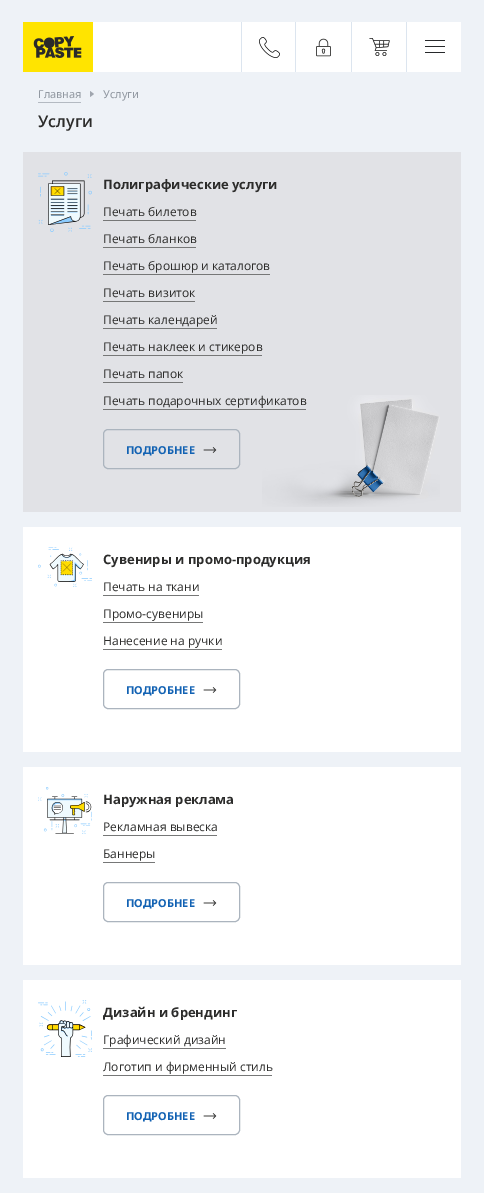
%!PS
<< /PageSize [484 1193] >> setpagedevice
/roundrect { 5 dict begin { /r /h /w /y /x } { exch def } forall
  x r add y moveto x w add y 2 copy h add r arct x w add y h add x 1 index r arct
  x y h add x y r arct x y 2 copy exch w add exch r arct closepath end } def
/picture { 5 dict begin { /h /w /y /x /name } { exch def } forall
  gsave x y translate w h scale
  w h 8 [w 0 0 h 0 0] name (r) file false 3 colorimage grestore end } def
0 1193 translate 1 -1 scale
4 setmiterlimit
0.933 0.949 0.969 setrgbcolor
0 0 484 1193 rectfill
1 setgray
93 22 368 50 rectfill
1 0.894 0 setrgbcolor
23 22 70 50 rectfill
(img1.rgb) 33 36 49 22 picture
0.863 0.898 0.937 setrgbcolor
295 22 1 50 rectfill
241 22 1 50 rectfill
(img2.rgb) 259 37 21 21 picture
(img3.rgb) 316 38 15 19 picture
351 22 1 50 rectfill
(img4.rgb) 369 38 21 18 picture
406 22 1 50 rectfill
0.153 0.161 0.169 setrgbcolor
425 40 20 1 rectfill
425 46 20 1 rectfill
425 52 20 1 rectfill
0.706 0.729 0.761 setrgbcolor
38 102 43 1 rectfill
/NotoSans-Regular [11 0 0 -11 0 0] selectfont
0.573 0.6 0.635 setrgbcolor
38 98 moveto (Главная) show
0.627 0.651 0.686 setrgbcolor
newpath 90 91 moveto 90 97 lineto 94 94 lineto closepath eofill
0.573 0.6 0.635 setrgbcolor
103 98 moveto (Услуги) show
/OpenSans-SemiBold [16 0 0 -16 0 0] selectfont
0.173 0.173 0.169 setrgbcolor
38 127 moveto (Услуги) show
0.882 0.886 0.902 setrgbcolor
23 152 438 360 rectfill
(img5.rgb) 262 395 178 112 picture
(img6.rgb) 38 172 54 60 picture
/OpenSans-Bold [13 0 0 -13 0 0] selectfont
0.173 0.173 0.169 setrgbcolor
103 189 moveto (Полиграфические услуги) show
/OpenSans-Regular [12 0 0 -12 0 0] selectfont
103 216 moveto (Печать билетов) show
0.463 0.467 0.467 setrgbcolor
103 220 93 1 rectfill
0.173 0.173 0.169 setrgbcolor
103 243 moveto (Печать бланков) show
0.463 0.467 0.467 setrgbcolor
103 247 93 1 rectfill
0.173 0.173 0.169 setrgbcolor
103 270 moveto (Печать брошюр и каталогов) show
0.463 0.467 0.467 setrgbcolor
103 274 167 1 rectfill
0.173 0.173 0.169 setrgbcolor
103 297 moveto (Печать визиток) show
0.463 0.467 0.467 setrgbcolor
103 301 92 1 rectfill
0.173 0.173 0.169 setrgbcolor
103 324 moveto (Печать календарей) show
0.463 0.467 0.467 setrgbcolor
103 328 114 1 rectfill
0.173 0.173 0.169 setrgbcolor
103 351 moveto (Печать наклеек и стикеров) show
0.463 0.467 0.467 setrgbcolor
103 355 159 1 rectfill
0.173 0.173 0.169 setrgbcolor
103 378 moveto (Печать папок) show
0.463 0.467 0.467 setrgbcolor
103 382 80 1 rectfill
0.173 0.173 0.169 setrgbcolor
103 405 moveto (Печать подарочных сертификатов) show
0.463 0.467 0.467 setrgbcolor
103 409 203 1 rectfill
0.671 0.706 0.745 setrgbcolor
103.5 429.5 136 39 4.5 roundrect stroke
/NotoSans-Bold [11 0 0 -11 0 0] selectfont
0.071 0.384 0.702 setrgbcolor
126 454 moveto (ПОДРОБНЕЕ) show
(img7.rgb) 203 447 14 6 picture
1 setgray
23 527 438 225 rectfill
(img8.rgb) 38 547 54 40 picture
/OpenSans-Bold [13 0 0 -13 0 0] selectfont
0.173 0.173 0.169 setrgbcolor
103 564 moveto (Сувениры и промо-продукция) show
/OpenSans-Regular [12 0 0 -12 0 0] selectfont
103 591 moveto (Печать на ткани) show
0.463 0.467 0.467 setrgbcolor
103 595 96 1 rectfill
0.173 0.173 0.169 setrgbcolor
103 618 moveto (Промо-сувениры) show
0.463 0.467 0.467 setrgbcolor
103 622 100 1 rectfill
0.173 0.173 0.169 setrgbcolor
103 645 moveto (Нанесение на ручки) show
0.463 0.467 0.467 setrgbcolor
103 649 119 1 rectfill
0.671 0.706 0.745 setrgbcolor
103.5 669.5 136 39 4.5 roundrect stroke
/NotoSans-Bold [11 0 0 -11 0 0] selectfont
0.071 0.384 0.702 setrgbcolor
126 694 moveto (ПОДРОБНЕЕ) show
(img9.rgb) 203 687 14 6 picture
1 setgray
23 767 438 198 rectfill
(img10.rgb) 38 787 54 47 picture
/OpenSans-Bold [13 0 0 -13 0 0] selectfont
0.173 0.173 0.169 setrgbcolor
103 804 moveto (Наружная реклама) show
/OpenSans-Regular [12 0 0 -12 0 0] selectfont
103 831 moveto (Рекламная вывеска) show
0.463 0.467 0.467 setrgbcolor
103 835 114 1 rectfill
0.173 0.173 0.169 setrgbcolor
103 858 moveto (Баннеры) show
0.463 0.467 0.467 setrgbcolor
103 862 52 1 rectfill
0.671 0.706 0.745 setrgbcolor
103.5 882.5 136 39 4.5 roundrect stroke
/NotoSans-Bold [11 0 0 -11 0 0] selectfont
0.071 0.384 0.702 setrgbcolor
126 907 moveto (ПОДРОБНЕЕ) show
(img9.rgb) 203 900 14 6 picture
1 setgray
23 980 438 198 rectfill
(img11.rgb) 38 1000 54 57 picture
gsave
103 1003 343 18 rectclip
/OpenSans-Bold [13 0 0 -13 0 0] selectfont
0.173 0.173 0.169 setrgbcolor
103 1017 moveto (Дизайн и брендинг) show
grestore
/OpenSans-Regular [12 0 0 -12 0 0] selectfont
0.173 0.173 0.169 setrgbcolor
103 1044 moveto (Графический дизайн) show
0.463 0.467 0.467 setrgbcolor
103 1048 123 1 rectfill
0.173 0.173 0.169 setrgbcolor
103 1071 moveto (Логотип и фирменный стиль) show
0.463 0.467 0.467 setrgbcolor
103 1075 169 1 rectfill
0.671 0.706 0.745 setrgbcolor
103.5 1095.5 136 39 4.5 roundrect stroke
/NotoSans-Bold [11 0 0 -11 0 0] selectfont
0.071 0.384 0.702 setrgbcolor
126 1120 moveto (ПОДРОБНЕЕ) show
(img9.rgb) 203 1113 14 6 picture
showpage
